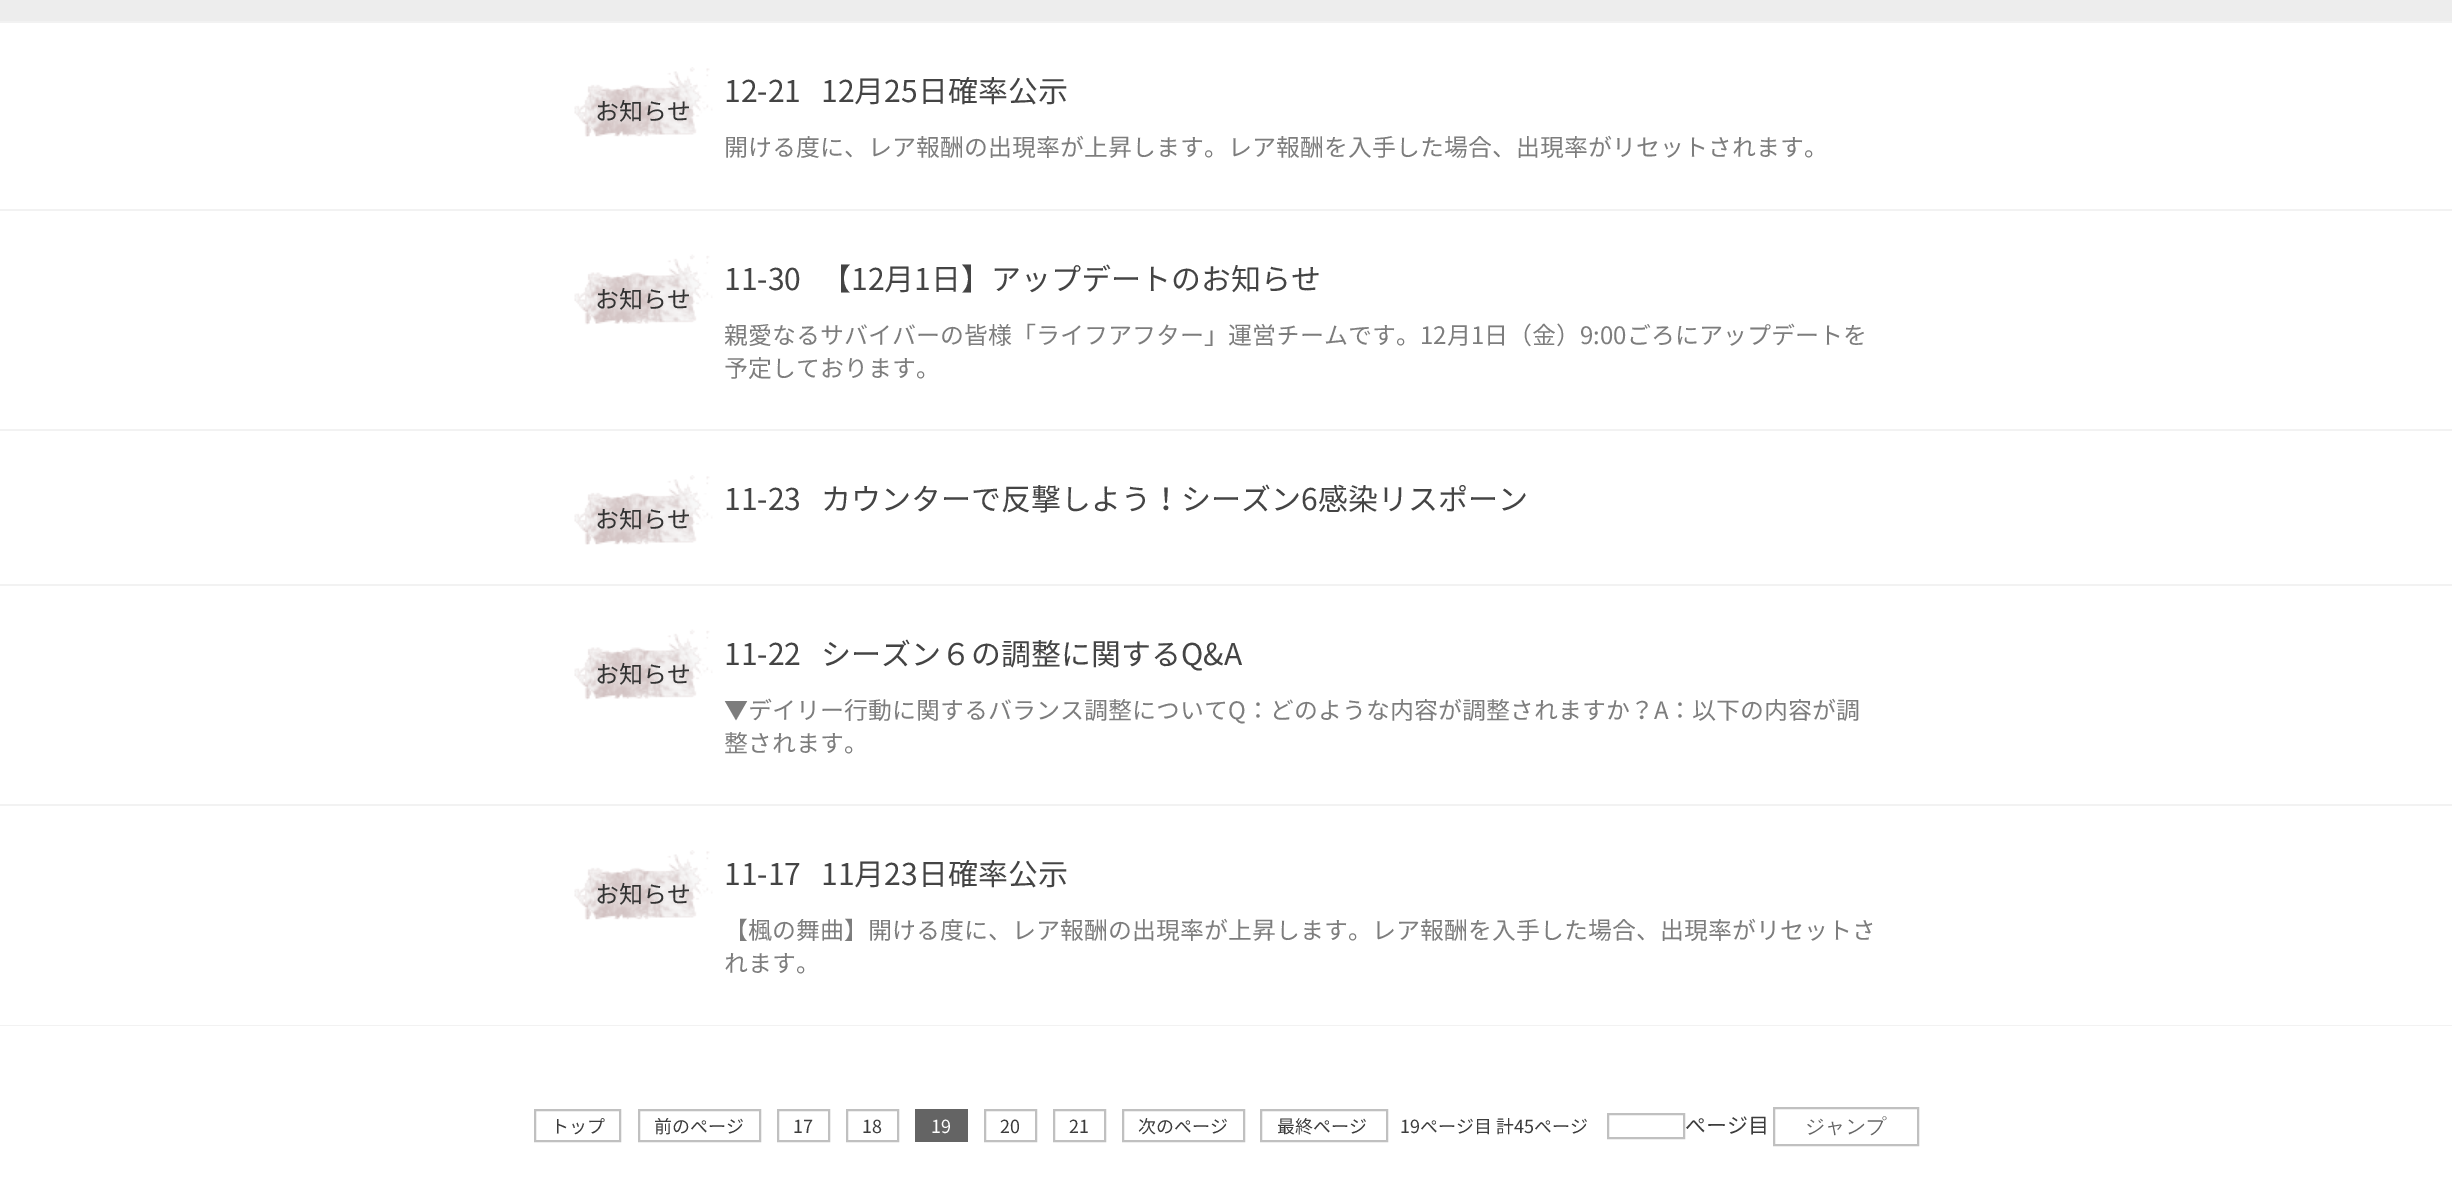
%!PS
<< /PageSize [2452 1199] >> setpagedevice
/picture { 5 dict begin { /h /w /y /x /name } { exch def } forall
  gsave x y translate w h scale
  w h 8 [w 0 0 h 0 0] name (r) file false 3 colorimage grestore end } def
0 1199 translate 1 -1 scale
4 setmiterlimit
1 setgray
0 0 2452 1199 rectfill
0.929 setgray
0 0 2452 21 rectfill
0.949 setgray
0 21 2452 2 rectfill
0 209 2452 2 rectfill
(img1.rgb) 574 67 139 70 picture
/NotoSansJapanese-Regular [24 0 0 -24 0 0] selectfont
0.2 setgray
595 120 moveto (お知らせ) show
/NotoSansJapanese-Regular [30 0 0 -30 0 0] selectfont
0.267 setgray
724 102 moveto (12-21) show
821 102 moveto (12月25日確率公示) show
/NotoSansJapanese-Regular [24 0 0 -24 0 0] selectfont
0.49 setgray
724 156 moveto (開ける度に、レア報酬の出現率が上昇します。レア報酬を入手した場合、出現率がリセットされます。) show
0.949 setgray
0 429 2452 2 rectfill
(img2.rgb) 574 254 139 71 picture
0.2 setgray
595 308 moveto (お知らせ) show
/NotoSansJapanese-Regular [30 0 0 -30 0 0] selectfont
0.267 setgray
724 290 moveto (11-30) show
821 290 moveto (【12月1日】アップデートのお知らせ) show
/NotoSansJapanese-Regular [24 0 0 -24 0 0] selectfont
0.49 setgray
724 344 moveto (親愛なるサバイバーの皆様「ライフアフター」運営チームです。12月1日（金）9:00ごろにアップデートを) show
724 377 moveto (予定しております。) show
0.949 setgray
0 584 2452 2 rectfill
/NotoSansJapanese-Regular [30 0 0 -30 0 0] selectfont
0.267 setgray
724 510 moveto (11-23) show
821 510 moveto (カウンターで反撃しよう！シーズン6感染リスポーン) show
(img1.rgb) 574 475 139 70 picture
/NotoSansJapanese-Regular [24 0 0 -24 0 0] selectfont
0.2 setgray
595 528 moveto (お知らせ) show
0.949 setgray
0 804 2452 2 rectfill
(img2.rgb) 574 629 139 71 picture
0.2 setgray
595 683 moveto (お知らせ) show
/NotoSansJapanese-Regular [30 0 0 -30 0 0] selectfont
0.267 setgray
724 665 moveto (11-22) show
821 665 moveto (シーズン６の調整に関するQ&A) show
/NotoSansJapanese-Regular [24 0 0 -24 0 0] selectfont
0.49 setgray
724 719 moveto (▼デイリー行動に関するバランス調整についてQ：どのような内容が調整されますか？A：以下の内容が調) show
724 752 moveto (整されます。) show
0.949 setgray
0 1025 2452 1 rectfill
(img1.rgb) 574 850 139 70 picture
0.2 setgray
595 903 moveto (お知らせ) show
/NotoSansJapanese-Regular [30 0 0 -30 0 0] selectfont
0.267 setgray
724 885 moveto (11-17) show
821 885 moveto (11月23日確率公示) show
/NotoSansJapanese-Regular [24 0 0 -24 0 0] selectfont
0.49 setgray
724 939 moveto (【楓の舞曲】開ける度に、レア報酬の出現率が上昇します。レア報酬を入手した場合、出現率がリセットさ) show
724 972 moveto (れます。) show
0.753 setgray
2 setlinewidth
535 1110 85 31 rectstroke
/NotoSansJapanese-Regular [18 0 0 -18 0 0] selectfont
0.235 setgray
551 1133 moveto (トップ) show
0.753 setgray
639 1110 121 31 rectstroke
0.235 setgray
654 1133 moveto (前のページ) show
0.753 setgray
778 1110 51 31 rectstroke
0.235 setgray
793 1133 moveto (17) show
0.753 setgray
847 1110 51 31 rectstroke
0.235 setgray
862 1133 moveto (18) show
0.392 setgray
915 1109 53 33 rectfill
1 setgray
931 1133 moveto (19) show
0.753 setgray
985 1110 51 31 rectstroke
0.235 setgray
1000 1133 moveto (20) show
0.753 setgray
1054 1110 51 31 rectstroke
0.235 setgray
1069 1133 moveto (21) show
0.753 setgray
1123 1110 121 31 rectstroke
0.235 setgray
1138 1133 moveto (次のページ) show
0.753 setgray
1261 1110 126 31 rectstroke
0.235 setgray
1277 1133 moveto (最終ページ) show
1400 1133 moveto (19ページ目 計45ページ) show
0.753 setgray
1608 1114 76 24 rectstroke
/NotoSansJapanese-Regular [21 0 0 -21 0 0] selectfont
0.235 setgray
1685 1133 moveto (ページ目) show
0.753 setgray
1774 1108 144 37 rectstroke
/WenQuanYiZenHei-Medium [20 0 0 -20 0 0] selectfont
0.392 setgray
1805 1133 moveto (ジャンプ) show
showpage
